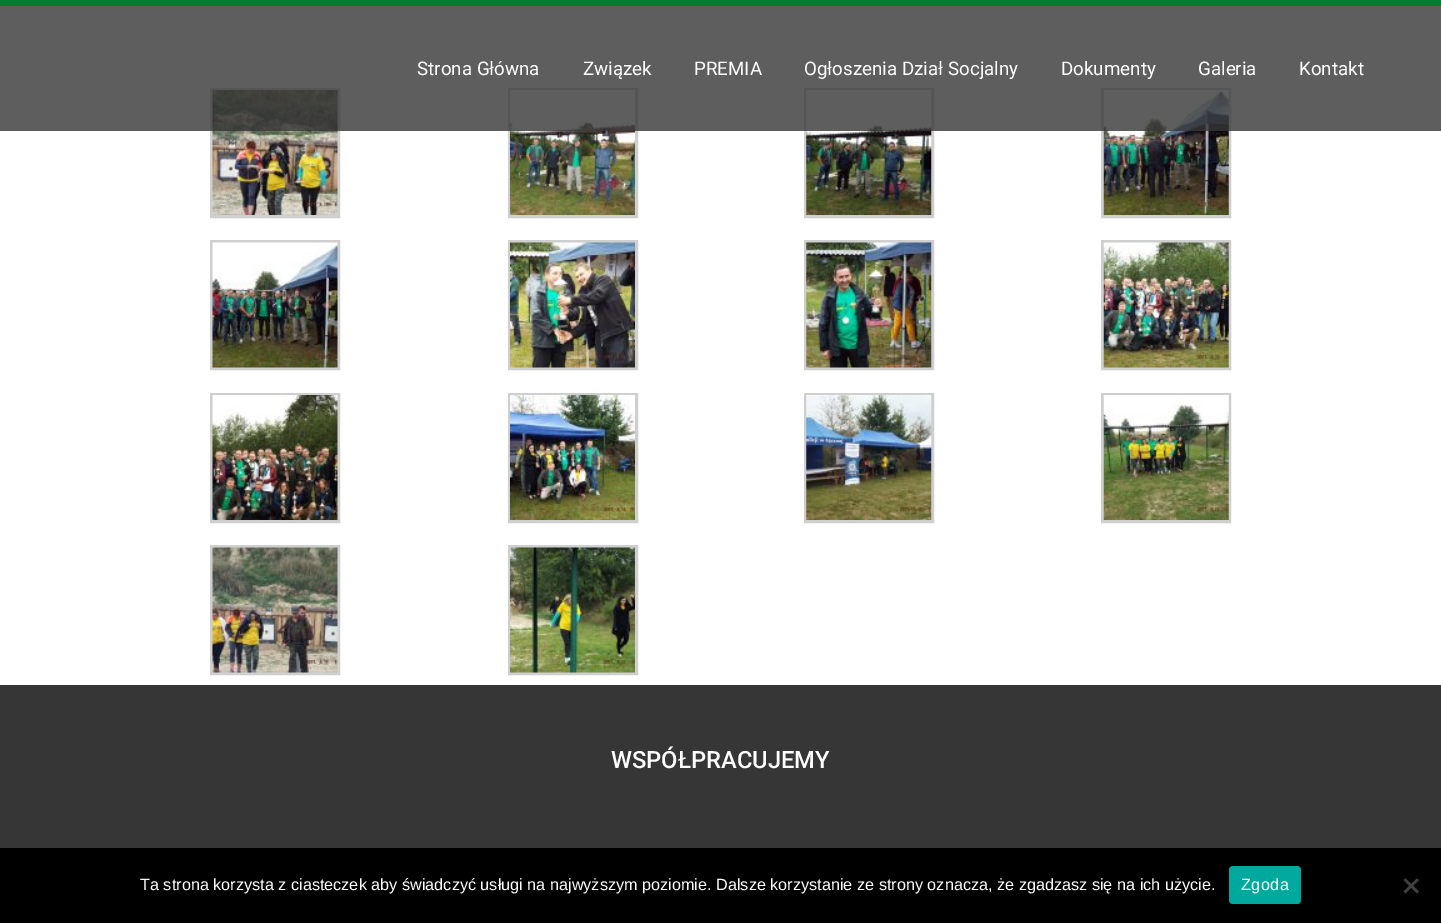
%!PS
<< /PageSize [1441 923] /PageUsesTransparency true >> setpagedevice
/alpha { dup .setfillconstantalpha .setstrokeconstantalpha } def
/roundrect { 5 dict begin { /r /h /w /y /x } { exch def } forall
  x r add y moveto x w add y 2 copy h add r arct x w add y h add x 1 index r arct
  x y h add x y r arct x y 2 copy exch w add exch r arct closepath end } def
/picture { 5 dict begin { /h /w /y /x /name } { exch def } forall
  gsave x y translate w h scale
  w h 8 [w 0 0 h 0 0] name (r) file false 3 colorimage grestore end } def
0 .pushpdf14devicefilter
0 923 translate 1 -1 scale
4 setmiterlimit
1 setgray
0 0 1441 923 rectfill
0 0.486 0.196 setrgbcolor
0 0 1441 6 rectfill
0.812 setgray
3 setlinewidth
211.5 89.5 127 127 rectstroke
(img1.rgb) 212 90 126 125 picture
509.5 89.5 127 127 rectstroke
(img2.rgb) 510 90 125 125 picture
805.5 89.5 127 127 rectstroke
(img3.rgb) 806 90 126 125 picture
1102.5 89.5 127 127 rectstroke
(img4.rgb) 1103 90 126 125 picture
0.8 alpha
0.212 setgray
0 6 1441 125 rectfill
/Roboto-Regular [18.75 0 0 -18.75 0 0] selectfont
1 alpha
1 setgray
417 75 moveto (Strona Główna) show
583 75 moveto (Związek) show
694 75 moveto (PREMIA) show
804 75 moveto (Ogłoszenia Dział Socjalny) show
1061 75 moveto (Dokumenty) show
1198 75 moveto (Galeria) show
1299 75 moveto (Kontakt) show
0.812 setgray
211.5 241.5 127 127 rectstroke
(img5.rgb) 212 242 126 126 picture
509.5 241.5 127 127 rectstroke
(img6.rgb) 510 242 125 126 picture
805.5 241.5 127 127 rectstroke
(img7.rgb) 806 242 126 126 picture
1102.5 241.5 127 127 rectstroke
(img8.rgb) 1103 242 126 126 picture
211.5 394.5 127 127 rectstroke
(img9.rgb) 212 395 126 125 picture
509.5 394.5 127 127 rectstroke
(img10.rgb) 510 395 125 125 picture
805.5 394.5 127 127 rectstroke
(img11.rgb) 806 395 126 125 picture
1102.5 394.5 127 127 rectstroke
(img12.rgb) 1103 395 126 125 picture
211.5 546.5 127 127 rectstroke
(img13.rgb) 212 547 126 126 picture
509.5 546.5 127 127 rectstroke
(img14.rgb) 510 547 125 126 picture
0.212 setgray
0 685 1441 163 rectfill
/Roboto-Medium [23.75 0 0 -23.75 0 0] selectfont
1 setgray
611 768 moveto (WSPÓŁPRACUJEMY) show
0 setgray
0 848 1441 75 rectfill
/LiberationSans-Regular [16.25 0 0 -16.25 0 0] selectfont
1 setgray
140 890 moveto (Ta strona korzysta z ciasteczek aby świadczyć usługi na najwyższym poziomie. Dalsze korzystanie ze strony oznacza, że zgadzasz się na ich użycie.) show
0 0.663 0.616 setrgbcolor
1229 866 72 38 4 roundrect fill
1 setgray
1241 890 moveto 0.5 0 (Zgoda) ashow
0.251 setgray
newpath 1417 878.5 moveto 1419 880 lineto 1405.5 893.5 lineto 1403.5 891.5 lineto closepath fill
newpath 1403.5 880 moveto 1405.5 878.5 lineto 1419 891.5 lineto 1417 893.5 lineto closepath fill
.poppdf14devicefilter showpage
